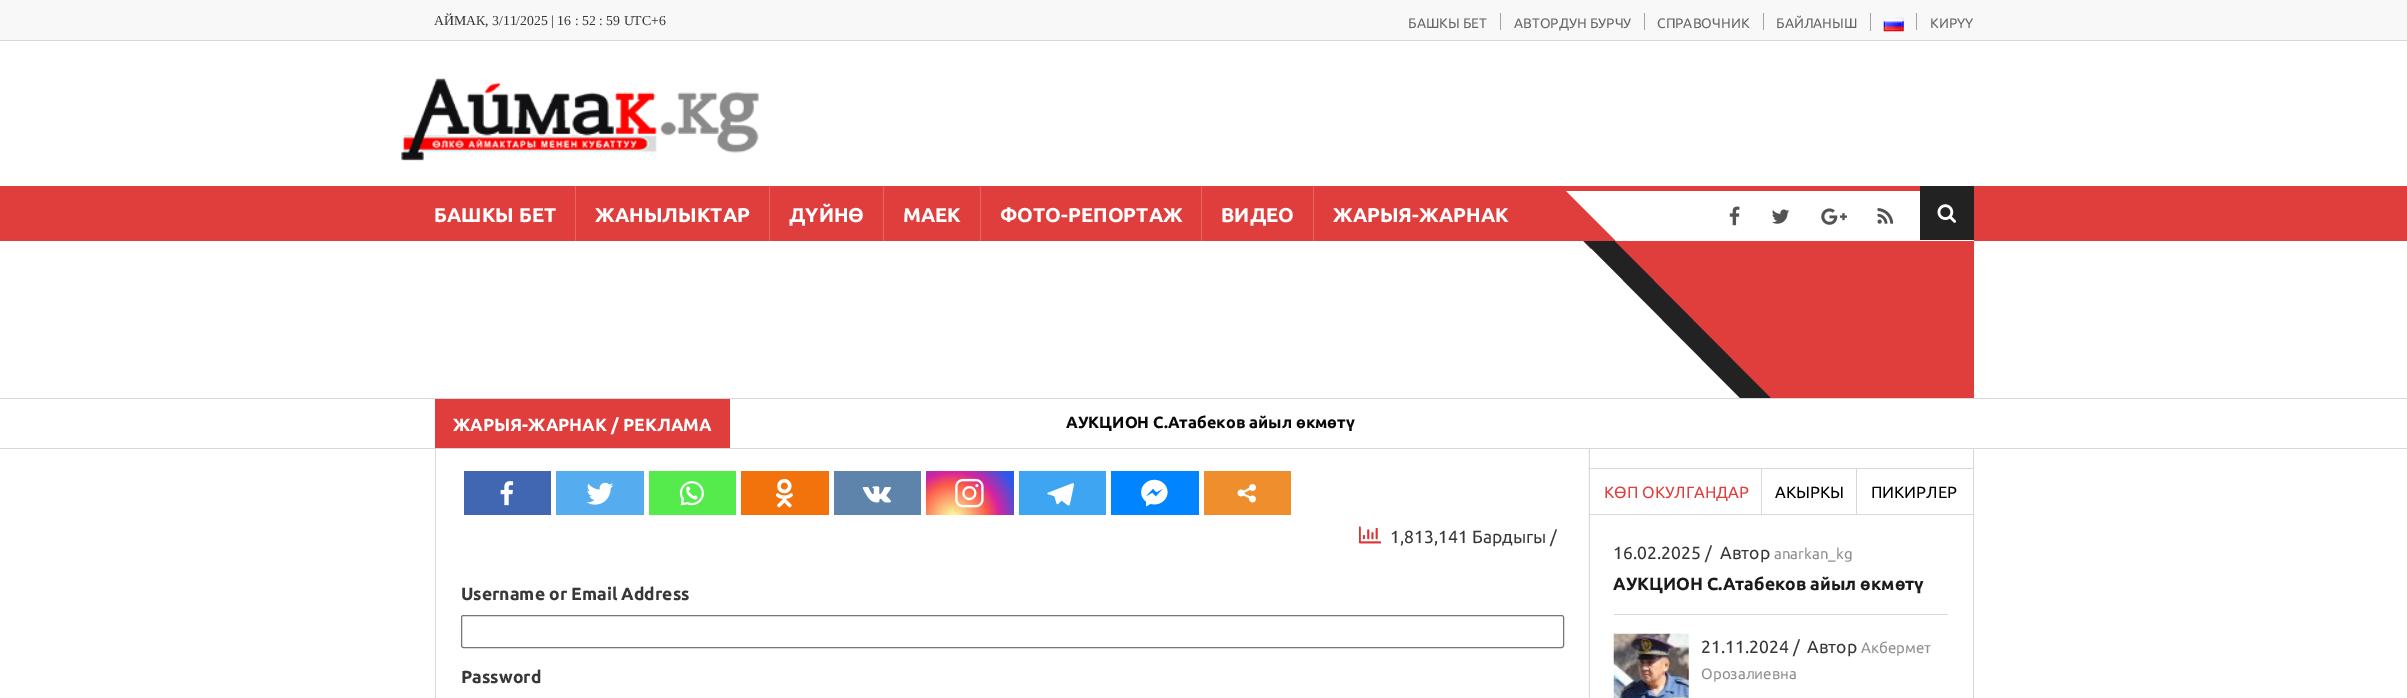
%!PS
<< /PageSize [2407 698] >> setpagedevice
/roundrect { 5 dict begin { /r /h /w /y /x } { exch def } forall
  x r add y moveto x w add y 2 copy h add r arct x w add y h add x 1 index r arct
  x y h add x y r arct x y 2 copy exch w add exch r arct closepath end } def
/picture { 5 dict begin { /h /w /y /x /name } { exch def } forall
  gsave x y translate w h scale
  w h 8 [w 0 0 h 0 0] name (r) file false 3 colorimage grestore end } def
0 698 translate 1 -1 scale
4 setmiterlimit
1 setgray
0 0 2407 698 rectfill
0.973 setgray
0 0 2407 40 rectfill
0.847 setgray
0 40 2407 1 rectfill
/LiberationSerif-Regular [13.75 0 0 -13.75 0 0] selectfont
0.22 setgray
434 25 moveto (АЙМАК, 3/11/2025 | 16 : 52 : 59 UTC+6) show
/Ubuntu-Regular [13.75 0 0 -13.75 0 0] selectfont
0.4 setgray
1408 28 moveto (БАШКЫ БЕТ) show
0.639 setgray
1500 13 1 17 rectfill
0.4 setgray
1514 28 moveto (АВТОРДУН БУРЧУ) show
0.639 setgray
1644 13 1 17 rectfill
0.4 setgray
1657 28 moveto (СПРАВОЧНИК) show
0.639 setgray
1763 13 1 17 rectfill
0.4 setgray
1776 28 moveto (БАЙЛАНЫШ) show
0.639 setgray
1870 13 1 18 rectfill
(img1.rgb) 1883 17 21 15 picture
1916 13 1 17 rectfill
0.4 setgray
1930 28 moveto (КИРҮҮ) show
(img2.rgb) 401 78 358 83 picture
0.878 0.239 0.239 setrgbcolor
0 186 2407 55 rectfill
/Ubuntu-Bold [20 0 0 -20 0 0] selectfont
1 setgray
434 222 moveto (БАШКЫ БЕТ) show
0.902 0.392 0.392 setrgbcolor
575 186 1 55 rectfill
1 setgray
595 222 moveto (ЖАНЫЛЫКТАР) show
0.902 0.392 0.392 setrgbcolor
769 186 1 55 rectfill
1 setgray
789 222 moveto (ДҮЙНӨ) show
0.902 0.392 0.392 setrgbcolor
883 186 1 55 rectfill
1 setgray
903 222 moveto (МАЕК) show
0.902 0.392 0.392 setrgbcolor
980 186 1 55 rectfill
1 setgray
1000 222 moveto (ФОТО-РЕПОРТАЖ) show
0.902 0.392 0.392 setrgbcolor
1201 186 1 55 rectfill
1 setgray
1221 222 moveto (ВИДЕО) show
0.902 0.392 0.392 setrgbcolor
1313 186 1 55 rectfill
1 setgray
1333 222 moveto (ЖАРЫЯ-ЖАРНАК) show
1616 191 358 50 rectfill
0.133 setgray
1920 186 54 54 rectfill
(img3.rgb) 1937 204 20 19 picture
0.847 setgray
0 398 2407 1 rectfill
0.878 0.239 0.239 setrgbcolor
newpath 1534 191 moveto 1591 191 lineto 1591 249 lineto closepath fill
1 setgray
newpath 1566 191 moveto 1616 191 lineto 1616 241 lineto closepath fill
(img4.rgb) 1729 206 11 20 picture
(img5.rgb) 1772 209 18 15 picture
(img6.rgb) 1821 208 26 17 picture
(img7.rgb) 1877 208 17 16 picture
0.133 setgray
newpath 1584 241 moveto 1740 241 lineto 1740 398 lineto closepath fill
1740 366 31 32 rectfill
0.878 0.239 0.239 setrgbcolor
newpath 1615 241 moveto 1771 241 lineto 1771 398 lineto closepath fill
1771 241 203 157 rectfill
0.847 setgray
0 448 2407 1 rectfill
0.878 0.239 0.239 setrgbcolor
435 399 295 49 rectfill
/Ubuntu-Bold [17.5 0 0 -17.5 0 0] selectfont
1 setgray
453 431 moveto (ЖАРЫЯ-ЖАРНАК / РЕКЛАМА) show
/Ubuntu-Bold [16.25 0 0 -16.25 0 0] selectfont
0.039 setgray
1066 428 moveto (АУКЦИОН С.Атабеков айыл өкмөтү) show
(img8.rgb) 1588 449 2 249 picture
0.847 setgray
1973 449 1 249 rectfill
435 449 1 249 rectfill
0.259 0.404 0.698 setrgbcolor
464 471 87 44 rectfill
(img9.rgb) 500 481 14 25 picture
0.333 0.675 0.933 setrgbcolor
556 471 88 44 rectfill
(img10.rgb) 586 482 28 23 picture
0.333 0.922 0.298 setrgbcolor
649 471 87 44 rectfill
(img11.rgb) 679 481 25 25 picture
0.949 0.447 0.047 setrgbcolor
741 471 88 44 rectfill
(img12.rgb) 775 478 18 30 picture
0.369 0.518 0.675 setrgbcolor
834 471 87 44 rectfill
(img13.rgb) 862 486 29 17 picture
gsave newpath 926 471 moveto 1014 471 lineto 1014 515 lineto 926 515 lineto closepath clip newpath 953 518 translate 77 77 scale
<< /ShadingType 3 /ColorSpace /DeviceRGB /Coords [0 0 0 0 0 1] /Extend [true true] /Function << /FunctionType 3 /Domain [0 1] /Functions [<< /FunctionType 2 /Domain [0 1] /C0 [0.992 0.957 0.592] /C1 [0.992 0.957 0.592] /N 1 >> << /FunctionType 2 /Domain [0 1] /C0 [0.992 0.957 0.592] /C1 [0.992 0.349 0.286] /N 1 >> << /FunctionType 2 /Domain [0 1] /C0 [0.992 0.349 0.286] /C1 [0.839 0.141 0.624] /N 1 >> << /FunctionType 2 /Domain [0 1] /C0 [0.839 0.141 0.624] /C1 [0.157 0.353 0.922] /N 1 >> << /FunctionType 2 /Domain [0 1] /C0 [0.157 0.353 0.922] /C1 [0.157 0.353 0.922] /N 1 >>] /Bounds [0.05 0.45 0.6 0.9] /Encode [0 1 0 1 0 1 0 1 0 1] >> >> shfill grestore
(img14.rgb) 955 478 29 30 picture
0.239 0.647 0.945 setrgbcolor
1019 471 87 44 rectfill
(img15.rgb) 1047 483 27 23 picture
0 0.518 1 setrgbcolor
1111 471 88 44 rectfill
(img16.rgb) 1141 479 27 28 picture
0.933 0.557 0.176 setrgbcolor
1204 471 87 44 rectfill
(img17.rgb) 1237 484 19 19 picture
(img18.rgb) 1359 526 22 18 picture
/Ubuntu-Regular [17.5 0 0 -17.5 0 0] selectfont
0.22 setgray
1390 543 moveto (1,813,141 Бардыгы /) show
/Ubuntu-Bold [17.5 0 0 -17.5 0 0] selectfont
461 600 moveto (Username or Email Address) show
0.463 setgray
461.5 615.5 1102 32 2 roundrect stroke
0.22 setgray
461 683 moveto (Password) show
0.847 setgray
1589 468 384 1 rectfill
1589 514 384 1 rectfill
/Ubuntu-Regular [16.25 0 0 -16.25 0 0] selectfont
0.878 0.239 0.239 setrgbcolor
1604 498 moveto (КӨП ОКУЛГАНДАР) show
0.847 setgray
1761 469 1 45 rectfill
0 setgray
1775 498 moveto (АКЫРКЫ) show
0.847 setgray
1856 469 1 45 rectfill
0 setgray
1871 498 moveto (ПИКИРЛЕР) show
/Ubuntu-Regular [17.5 0 0 -17.5 0 0] selectfont
0.22 setgray
1613 559 moveto (16.02.2025 /) show
1720 559 moveto (Автор) show
/Ubuntu-Regular [15 0 0 -15 0 0] selectfont
0.561 setgray
1774 559 moveto (anarkan_kg) show
/Ubuntu-Bold [17.5 0 0 -17.5 0 0] selectfont
0.106 setgray
1613 590 moveto (АУКЦИОН С.Атабеков айыл өкмөтү) show
0.847 setgray
1614 614 334 1 rectfill
(img19.rgb) 1613 633 76 65 picture
/Ubuntu-Regular [17.5 0 0 -17.5 0 0] selectfont
0.22 setgray
1701 653 moveto (21.11.2024 /) show
1807 653 moveto (Автор) show
/Ubuntu-Regular [15 0 0 -15 0 0] selectfont
0.561 setgray
1861 653 moveto (Акбермет) show
1701 679 moveto (Орозалиевна) show
showpage
